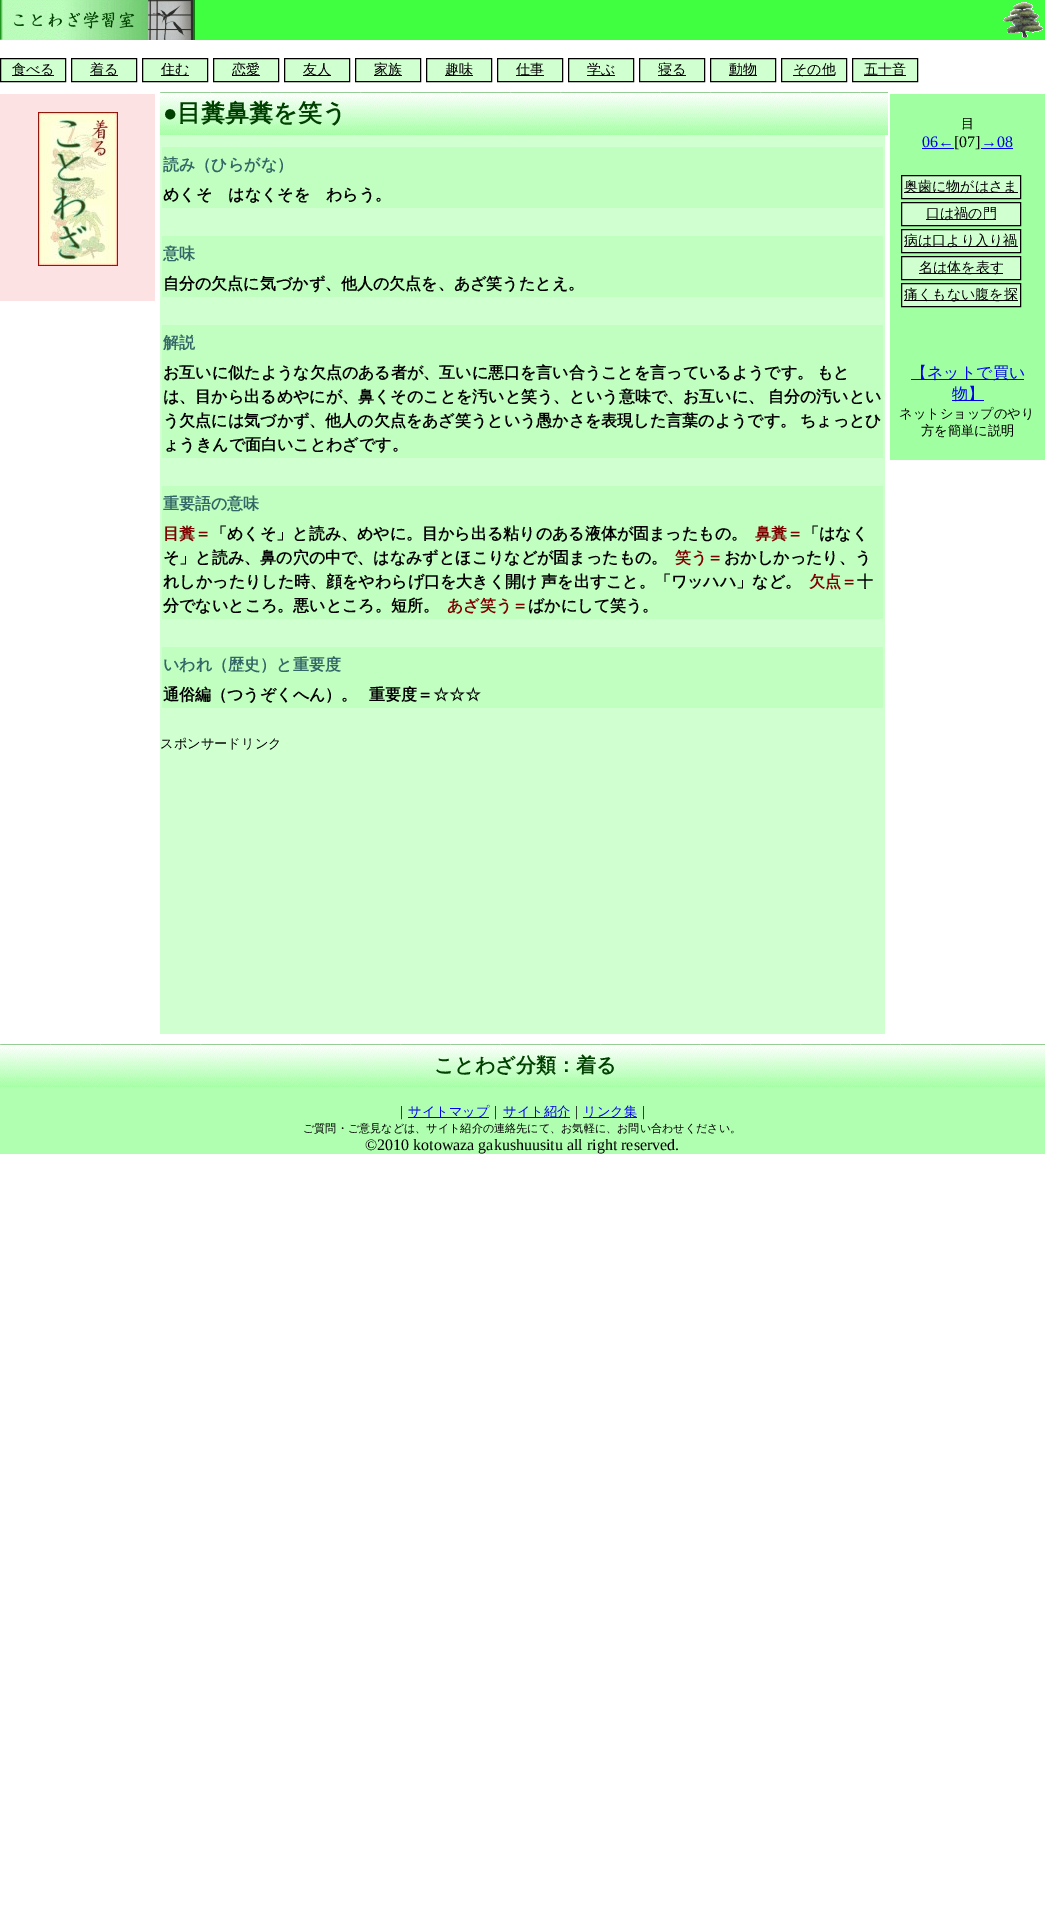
%!PS
<< /PageSize [1045 1914] >> setpagedevice
/picture { 5 dict begin { /h /w /y /x /name } { exch def } forall
  gsave x y translate w h scale
  w h 8 [w 0 0 h 0 0] name (r) file false 3 colorimage grestore end } def
0 1914 translate 1 -1 scale
4 setmiterlimit
1 setgray
0 0 1045 1914 rectfill
0.251 1 0.251 setrgbcolor
195 0 850 40 rectfill
(img1.rgb) 0 0 195 40 picture
(img2.rgb) 1003 2 40 36 picture
0.816 1 0.816 setrgbcolor
newpath 0.5 58.5 moveto 65.5 58.5 lineto 65.5 81.5 lineto 0.5 81.5 lineto closepath gsave fill grestore
0 setgray
stroke
12 75 42 1 rectfill
/WenQuanYiZenHei-Medium [14 0 0 -14 0 0] selectfont
12 74 moveto (食べる) show
0.816 1 0.816 setrgbcolor
newpath 71.5 58.5 moveto 136.5 58.5 lineto 136.5 81.5 lineto 71.5 81.5 lineto closepath gsave fill grestore
0 setgray
stroke
90 75 28 1 rectfill
90 74 moveto (着る) show
0.816 1 0.816 setrgbcolor
newpath 142.5 58.5 moveto 207.5 58.5 lineto 207.5 81.5 lineto 142.5 81.5 lineto closepath gsave fill grestore
0 setgray
stroke
161 75 28 1 rectfill
161 74 moveto (住む) show
0.816 1 0.816 setrgbcolor
newpath 213.5 58.5 moveto 278.5 58.5 lineto 278.5 81.5 lineto 213.5 81.5 lineto closepath gsave fill grestore
0 setgray
stroke
232 75 28 1 rectfill
232 74 moveto (恋愛) show
0.816 1 0.816 setrgbcolor
newpath 284.5 58.5 moveto 349.5 58.5 lineto 349.5 81.5 lineto 284.5 81.5 lineto closepath gsave fill grestore
0 setgray
stroke
303 75 28 1 rectfill
303 74 moveto (友人) show
0.816 1 0.816 setrgbcolor
newpath 355.5 58.5 moveto 420.5 58.5 lineto 420.5 81.5 lineto 355.5 81.5 lineto closepath gsave fill grestore
0 setgray
stroke
374 75 28 1 rectfill
374 74 moveto (家族) show
0.816 1 0.816 setrgbcolor
newpath 426.5 58.5 moveto 491.5 58.5 lineto 491.5 81.5 lineto 426.5 81.5 lineto closepath gsave fill grestore
0 setgray
stroke
445 75 28 1 rectfill
445 74 moveto (趣味) show
0.816 1 0.816 setrgbcolor
newpath 497.5 58.5 moveto 562.5 58.5 lineto 562.5 81.5 lineto 497.5 81.5 lineto closepath gsave fill grestore
0 setgray
stroke
516 75 28 1 rectfill
516 74 moveto (仕事) show
0.816 1 0.816 setrgbcolor
newpath 568.5 58.5 moveto 633.5 58.5 lineto 633.5 81.5 lineto 568.5 81.5 lineto closepath gsave fill grestore
0 setgray
stroke
587 75 28 1 rectfill
587 74 moveto (学ぶ) show
0.816 1 0.816 setrgbcolor
newpath 639.5 58.5 moveto 704.5 58.5 lineto 704.5 81.5 lineto 639.5 81.5 lineto closepath gsave fill grestore
0 setgray
stroke
658 75 28 1 rectfill
658 74 moveto (寝る) show
0.816 1 0.816 setrgbcolor
newpath 710.5 58.5 moveto 775.5 58.5 lineto 775.5 81.5 lineto 710.5 81.5 lineto closepath gsave fill grestore
0 setgray
stroke
729 75 28 1 rectfill
729 74 moveto (動物) show
0.816 1 0.816 setrgbcolor
newpath 781.5 58.5 moveto 846.5 58.5 lineto 846.5 81.5 lineto 781.5 81.5 lineto closepath gsave fill grestore
0 setgray
stroke
793 75 42 1 rectfill
793 74 moveto (その他) show
0.816 1 0.816 setrgbcolor
newpath 852.5 58.5 moveto 917.5 58.5 lineto 917.5 81.5 lineto 852.5 81.5 lineto closepath gsave fill grestore
0 setgray
stroke
864 75 42 1 rectfill
864 74 moveto (五十音) show
0.988 0.886 0.886 setrgbcolor
0 94 155 207 rectfill
(img3.rgb) 38 112 80 154 picture
0.816 1 0.816 setrgbcolor
160 135 725 899 rectfill
(img4.rgb) 160 92 728 43 picture
/LiberationSerif-Bold [24 0 0 -24 0 0] selectfont
0 0.251 0 setrgbcolor
163 121 moveto (●) show
/WenQuanYiZenHei-Bold [24 0 0 -24 0 0] selectfont
177 121 moveto (目糞鼻糞を笑う) show
0.753 1 0.753 setrgbcolor
162 147 721 61 rectfill
/WenQuanYiZenHei-Bold [16 0 0 -16 0 0] selectfont
0.2 0.4 0.4 setrgbcolor
163 170 moveto (読み（ひらがな）) show
0 setgray
163 200 moveto (めくそ　はなくそを　わらう。) show
0.753 1 0.753 setrgbcolor
162 236 721 61 rectfill
0.2 0.4 0.4 setrgbcolor
163 259 moveto (意味) show
0 setgray
163 289 moveto (自分の欠点に気づかず、他人の欠点を、あざ笑うたとえ。) show
0.753 1 0.753 setrgbcolor
162 325 721 133 rectfill
0.2 0.4 0.4 setrgbcolor
163 348 moveto (解説) show
0 setgray
163 378 moveto -1 0 32 (お互いに似たような欠点のある者が、互いに悪口を言い合うことを言っているようです。 もと) widthshow
163 402 moveto -1 0 32 (は、目から出るめやにが、鼻くそのことを汚いと笑う、という意味で、お互いに、 自分の汚いとい) widthshow
163 426 moveto -1 0 32 (う欠点には気づかず、他人の欠点をあざ笑うという愚かさを表現した言葉のようです。 ちょっとひ) widthshow
163 450 moveto (ょうきんで面白いことわざです。) show
0.753 1 0.753 setrgbcolor
162 486 721 133 rectfill
0.2 0.4 0.4 setrgbcolor
163 509 moveto (重要語の意味) show
0.502 0 0 setrgbcolor
163 539 moveto (目糞＝) show
0 setgray
211 539 moveto (「めくそ」と読み、めやに。目から出る粘りのある液体が固まったもの。) show
0.502 0 0 setrgbcolor
755 539 moveto (鼻糞＝) show
0 setgray
803 539 moveto (「はなく) show
163 563 moveto (そ」と読み、鼻の穴の中で、はなみずとほこりなどが固まったもの。) show
0.502 0 0 setrgbcolor
675 563 moveto (笑う＝) show
0 setgray
724 563 moveto (おかしかったり、う) show
163 587 moveto -1 0 32 (れしかったりした時、顔をやわらげ口を大きく開け 声を出すこと。「ワッハハ」など。) widthshow
0.502 0 0 setrgbcolor
809 587 moveto (欠点＝) show
0 setgray
857 587 moveto (十) show
163 611 moveto (分でないところ。悪いところ。短所。) show
0.502 0 0 setrgbcolor
447 611 moveto (あざ笑う＝) show
0 setgray
528 611 moveto (ばかにして笑う。) show
0.753 1 0.753 setrgbcolor
162 647 721 61 rectfill
0.2 0.4 0.4 setrgbcolor
163 670 moveto (いわれ（歴史）と重要度) show
0 setgray
163 700 moveto (通俗編（つうぞくへん）。) show
369 700 moveto (重要度＝☆☆☆) show
/WenQuanYiZenHei-Medium [13.25 0 0 -13.25 0 0] selectfont
160 748 moveto (スポンサードリンク) show
0.627 1 0.627 setrgbcolor
890 94 155 366 rectfill
0 setgray
961 128 moveto (目) show
/LiberationSerif-Regular [16 0 0 -16 0 0] selectfont
0 0 0.933 setrgbcolor
922 147 moveto (06←) show
922 148 32 1 rectfill
0 setgray
954 147 moveto ([07]) show
0 0 0.933 setrgbcolor
981 147 moveto (→08) show
981 148 32 1 rectfill
0.816 1 0.816 setrgbcolor
newpath 901.5 175.5 moveto 1020.5 175.5 lineto 1020.5 198.5 lineto 901.5 198.5 lineto closepath gsave fill grestore
0 setgray
stroke
904 192 114 1 rectfill
/WenQuanYiZenHei-Medium [14 0 0 -14 0 0] selectfont
904 191 moveto (奥歯に物がはさま) show
0.816 1 0.816 setrgbcolor
newpath 901.5 202.5 moveto 1020.5 202.5 lineto 1020.5 225.5 lineto 901.5 225.5 lineto closepath gsave fill grestore
0 setgray
stroke
926 219 70 1 rectfill
926 218 moveto (口は禍の門) show
0.816 1 0.816 setrgbcolor
newpath 901.5 229.5 moveto 1020.5 229.5 lineto 1020.5 252.5 lineto 901.5 252.5 lineto closepath gsave fill grestore
0 setgray
stroke
904 246 114 1 rectfill
904 245 moveto (病は口より入り禍) show
0.816 1 0.816 setrgbcolor
newpath 901.5 256.5 moveto 1020.5 256.5 lineto 1020.5 279.5 lineto 901.5 279.5 lineto closepath gsave fill grestore
0 setgray
stroke
919 273 84 1 rectfill
919 272 moveto (名は体を表す) show
0.816 1 0.816 setrgbcolor
newpath 901.5 283.5 moveto 1020.5 283.5 lineto 1020.5 306.5 lineto 901.5 306.5 lineto closepath gsave fill grestore
0 setgray
stroke
904 300 114 1 rectfill
904 299 moveto (痛くもない腹を探) show
0 0 0.933 setrgbcolor
911 379 113 1 rectfill
/WenQuanYiZenHei-Medium [16 0 0 -16 0 0] selectfont
911 378 moveto (【ネットで買い) show
952 400 32 1 rectfill
952 399 moveto (物】) show
/WenQuanYiZenHei-Medium [13.25 0 0 -13.25 0 0] selectfont
0 setgray
899 418 moveto (ネットショップのやり) show
921 435 moveto (方を簡単に説明) show
0.69 1 0.69 setrgbcolor
0 1087 1045 67 rectfill
(img5.rgb) 0 1044 1045 43 picture
/WenQuanYiZenHei-Bold [20 0 0 -20 0 0] selectfont
0 0.251 0 setrgbcolor
434 1072 moveto (ことわざ分類：着る) show
/WenQuanYiZenHei-Medium [13.25 0 0 -13.25 0 0] selectfont
0 setgray
395 1116 moveto (｜) show
0 0 0.933 setrgbcolor
408 1117 81 1 rectfill
408 1116 moveto (サイトマップ) show
0 setgray
489 1116 moveto (｜) show
0 0 0.933 setrgbcolor
503 1117 67 1 rectfill
503 1116 moveto (サイト紹介) show
0 setgray
570 1116 moveto (｜) show
0 0 0.933 setrgbcolor
583 1117 54 1 rectfill
583 1116 moveto (リンク集) show
0 setgray
637 1116 moveto (｜) show
/WenQuanYiZenHei-Medium [11.1 0 0 -11.1 0 0] selectfont
303 1132 moveto (ご質問・ご意見などは、サイト紹介の連絡先にて、お気軽に、お問い合わせください。) show
/LiberationSerif-Regular [16 0 0 -16 0 0] selectfont
365 1150 moveto (©2010 kotowaza gakushuusitu all right reserved.) show
showpage
